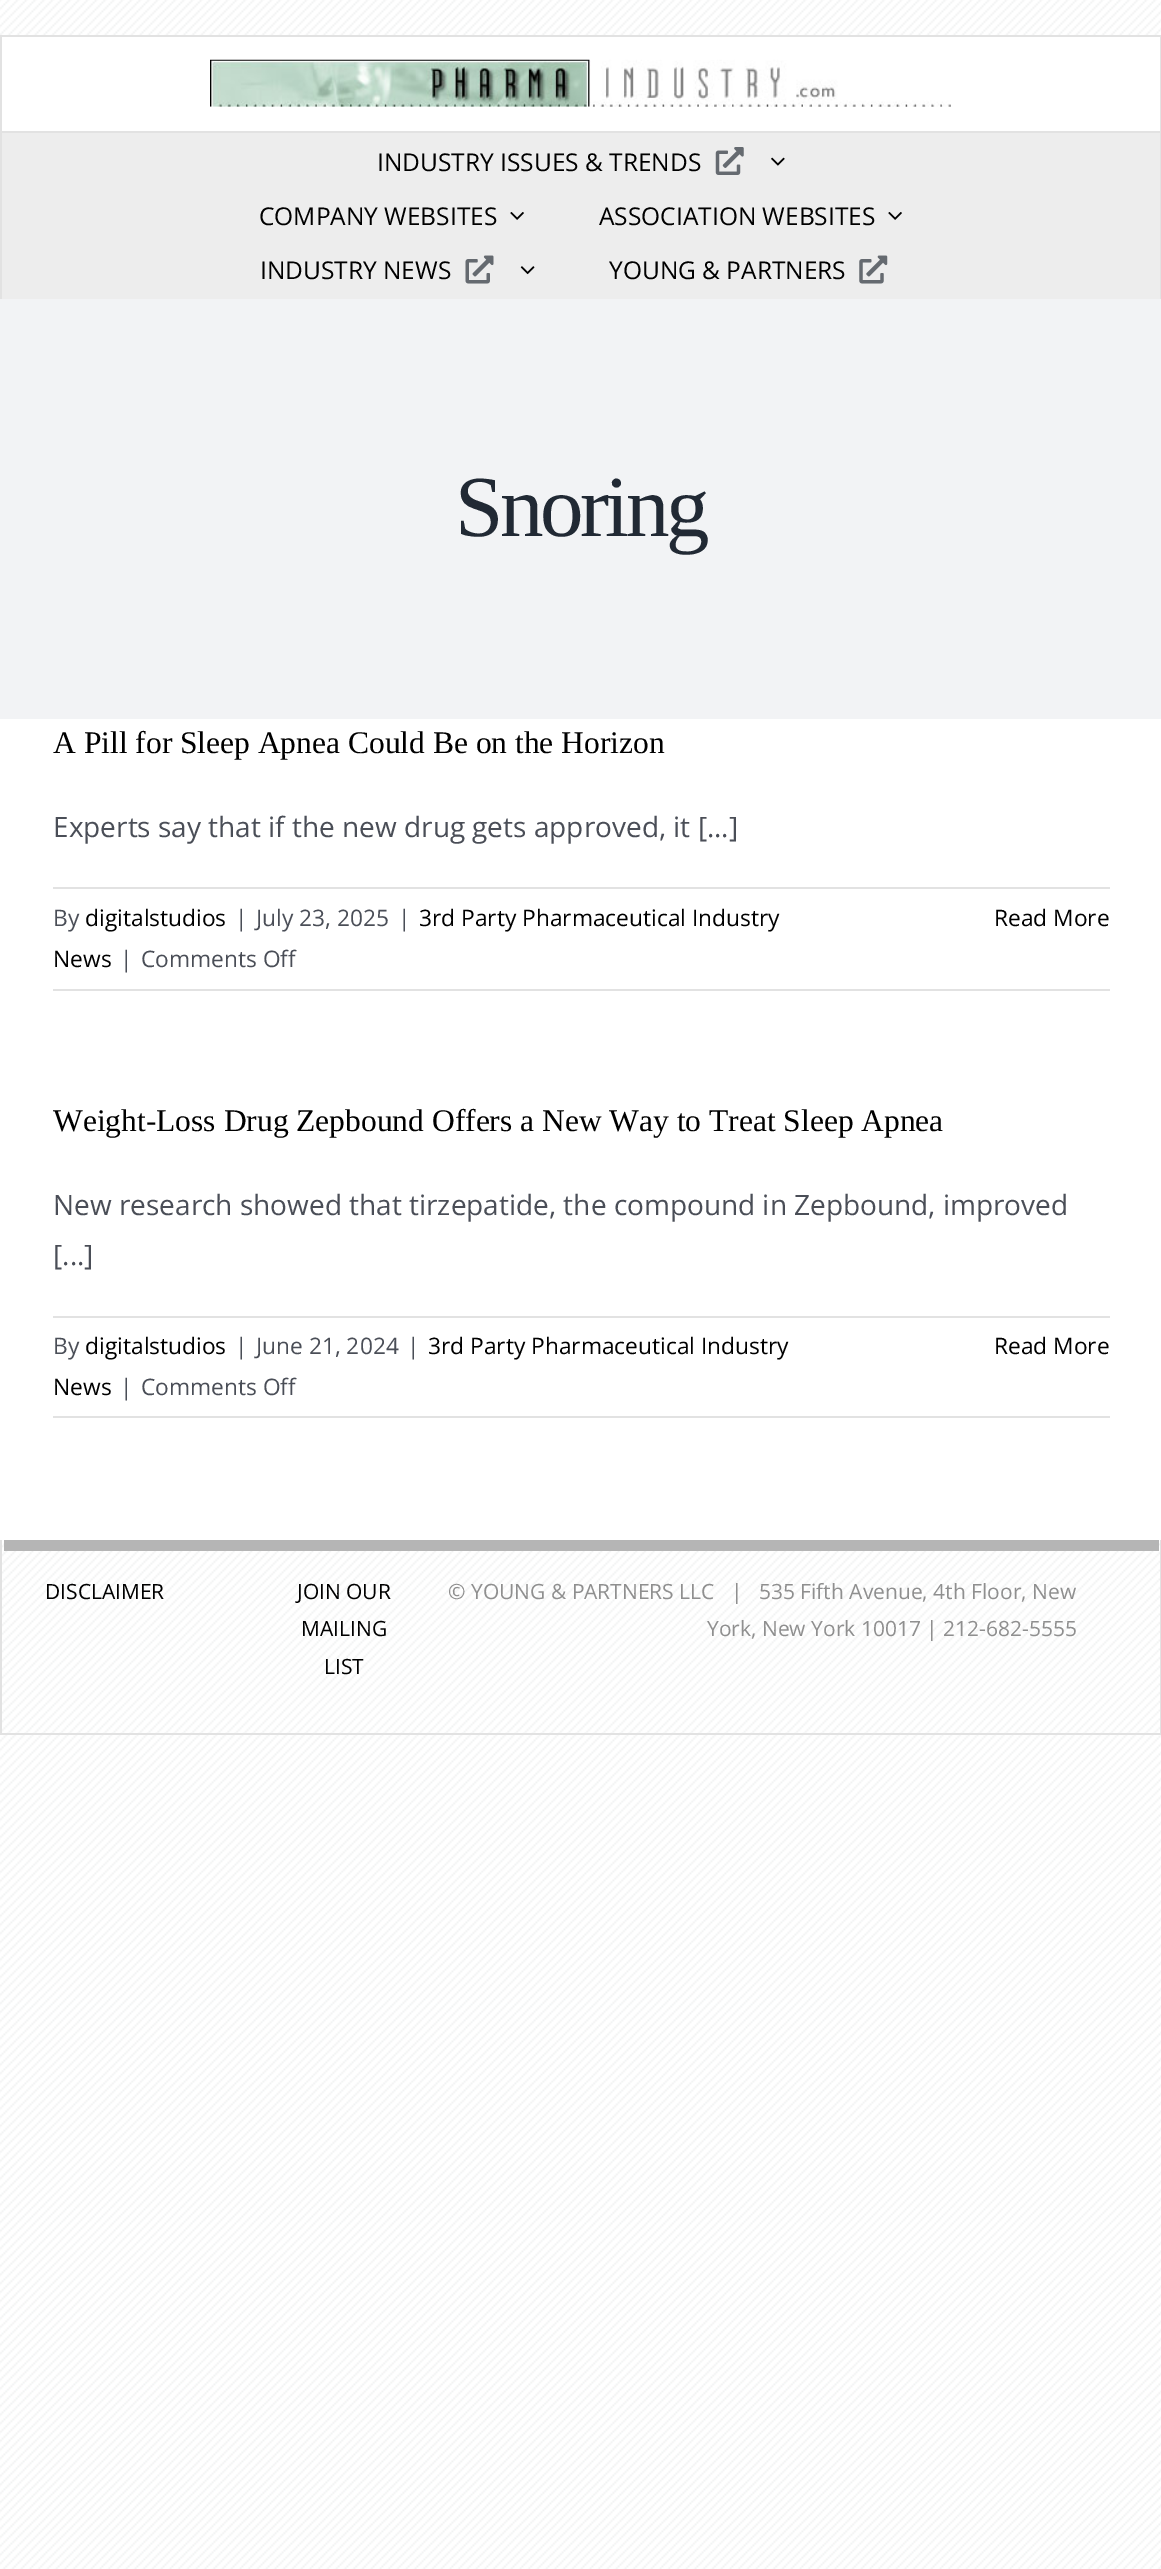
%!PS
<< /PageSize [1161 2569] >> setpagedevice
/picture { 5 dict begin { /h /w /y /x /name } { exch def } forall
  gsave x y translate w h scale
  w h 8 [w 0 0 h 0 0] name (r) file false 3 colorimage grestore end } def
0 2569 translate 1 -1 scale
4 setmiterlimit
1 setgray
0 0 1161 2569 rectfill
(img1.rgb) 0 0 1161 2569 picture
2 37 1158 94 rectfill
0.886 setgray
0 35 1161 2 rectfill
1160 35 1 96 rectfill
0 35 2 96 rectfill
(img2.rgb) 210 59 741 48 picture
0.929 setgray
2 133 1158 166 rectfill
0.886 setgray
0 131 1161 2 rectfill
1160 131 1 168 rectfill
0 131 2 168 rectfill
/OpenSans-Regular [24.5 0 0 -24.5 0 0] selectfont
0 setgray
377 171 moveto (INDUSTRY ISSUES & TRENDS) show
(img3.rgb) 715 147 29 28 picture
(img4.rgb) 771 157 14 9 picture
259 225 moveto (COMPANY WEBSITES) show
(img5.rgb) 510 212 14 8 picture
599 225 moveto (ASSOCIATION WEBSITES) show
(img5.rgb) 888 212 14 8 picture
260 279 moveto (INDUSTRY NEWS) show
(img6.rgb) 465 255 29 29 picture
(img7.rgb) 520 266 15 9 picture
609 279 moveto (YOUNG & PARTNERS) show
(img8.rgb) 859 255 29 29 picture
0.949 0.953 0.961 setrgbcolor
0 299 1161 420 rectfill
/LiberationSerif-Regular [87 0 0 -87 0 0] selectfont
0.129 0.161 0.204 setrgbcolor
455 536 moveto -3.5 0 (Snoring) ashow
1 setgray
0 719 1161 821 rectfill
/LiberationSerif-Regular [31.5 0 0 -31.5 0 0] selectfont
0 setgray
53 753 moveto (A Pill for Sleep Apnea Could Be on the Horizon) show
/OpenSans-Regular [28 0 0 -28 0 0] selectfont
0.29 0.306 0.341 setrgbcolor
53 837 moveto (Experts say that if the new drug gets approved, it [...]) show
0.886 setgray
53 887 1057 2 rectfill
53 989 1057 2 rectfill
/OpenSans-Regular [22.75 0 0 -22.75 0 0] selectfont
0.29 0.306 0.341 setrgbcolor
53 926 moveto (By) show
0 setgray
85 926 moveto (digitalstudios) show
0.29 0.306 0.341 setrgbcolor
235 926 moveto (|) show
256 926 moveto (July 23, 2025) show
398 926 moveto (|) show
0 setgray
419 926 moveto (3rd Party Pharmaceutical Industry) show
53 967 moveto (News) show
0.29 0.306 0.341 setrgbcolor
120 967 moveto (|) show
141 967 moveto (Comments Off) show
0 setgray
994 926 moveto (Read More) show
/LiberationSerif-Regular [31.5 0 0 -31.5 0 0] selectfont
53 1131 moveto (Weight-Loss Drug Zepbound Offers a New Way to Treat Sleep Apnea) show
/OpenSans-Regular [28 0 0 -28 0 0] selectfont
0.29 0.306 0.341 setrgbcolor
53 1215 moveto (New research showed that tirzepatide, the compound in Zepbound, improved) show
53 1265 moveto ([...]) show
0.886 setgray
53 1316 1057 2 rectfill
53 1416 1057 2 rectfill
/OpenSans-Regular [22.75 0 0 -22.75 0 0] selectfont
0.29 0.306 0.341 setrgbcolor
53 1354 moveto (By) show
0 setgray
85 1354 moveto (digitalstudios) show
0.29 0.306 0.341 setrgbcolor
235 1354 moveto (|) show
256 1354 moveto (June 21, 2024) show
407 1354 moveto (|) show
0 setgray
428 1354 moveto (3rd Party Pharmaceutical Industry) show
53 1395 moveto (News) show
0.29 0.306 0.341 setrgbcolor
120 1395 moveto (|) show
141 1395 moveto (Comments Off) show
0 setgray
994 1354 moveto (Read More) show
0.886 setgray
1160 1540 1 194 rectfill
0 1733 1161 2 rectfill
0 1540 2 194 rectfill
0.71 setgray
4 1540 1155 11 rectfill
/OpenSans-Regular [21 0 0 -21 0 0] selectfont
0 setgray
45 1599 moveto (DISCLAIMER) show
297 1599 moveto (JOIN OUR) show
301 1636 moveto (MAILING) show
324 1674 moveto (LIST) show
0.561 setgray
448 1599 moveto (© YOUNG & PARTNERS LLC   |   535 Fifth Avenue, 4th Floor, New) show
707 1636 moveto (York, New York 10017 | 212-682-5555) show
showpage
